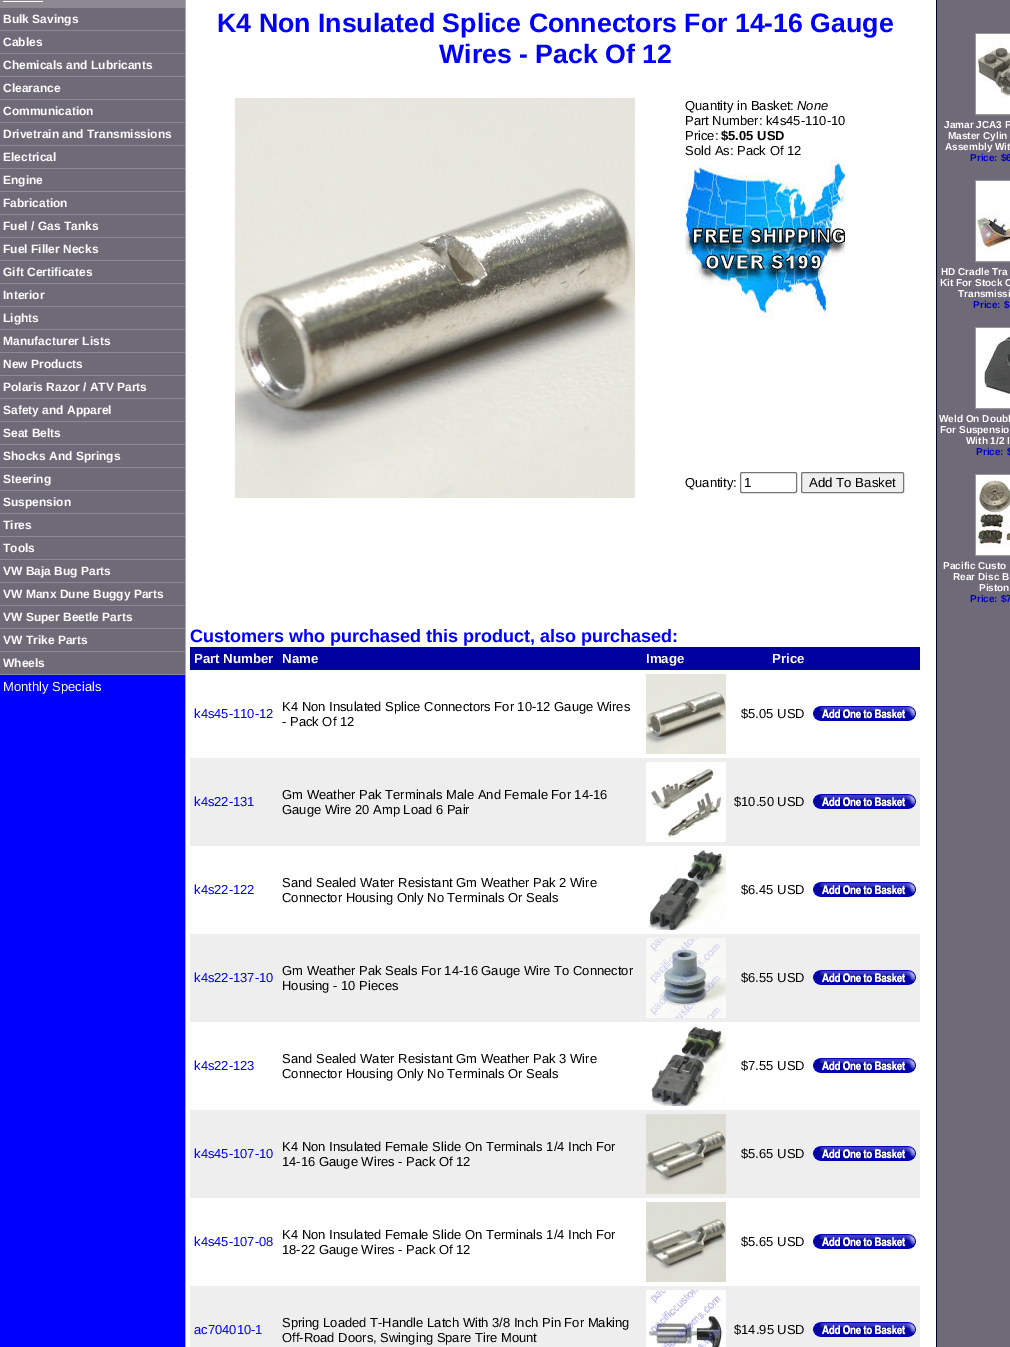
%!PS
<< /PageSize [1010 1347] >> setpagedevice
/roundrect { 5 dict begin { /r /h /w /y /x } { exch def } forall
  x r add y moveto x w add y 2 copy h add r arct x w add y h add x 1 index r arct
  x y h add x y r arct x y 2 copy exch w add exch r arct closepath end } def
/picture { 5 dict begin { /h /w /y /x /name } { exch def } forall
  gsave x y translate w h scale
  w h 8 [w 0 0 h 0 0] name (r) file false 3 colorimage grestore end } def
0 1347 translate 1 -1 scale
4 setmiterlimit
1 setgray
0 0 1010 1347 rectfill
0 0 0.996 setrgbcolor
0 675 185 672 rectfill
0.549 0.537 0.573 setrgbcolor
0 0 185 8 rectfill
1 setgray
3 1 40 1 rectfill
0.431 0.416 0.471 setrgbcolor
0 8 185 22 rectfill
0.549 0.537 0.573 setrgbcolor
0 30 185 1 rectfill
/LiberationSans-Bold [12 0 0 -12 0 0] selectfont
1 setgray
3 23 moveto (Bulk Savings) show
0.431 0.416 0.471 setrgbcolor
0 31 185 22 rectfill
0.549 0.537 0.573 setrgbcolor
0 53 185 1 rectfill
1 setgray
3 46 moveto (Cables) show
0.431 0.416 0.471 setrgbcolor
0 54 185 22 rectfill
0.549 0.537 0.573 setrgbcolor
0 76 185 1 rectfill
1 setgray
3 69 moveto (Chemicals and Lubricants) show
0.431 0.416 0.471 setrgbcolor
0 77 185 22 rectfill
0.549 0.537 0.573 setrgbcolor
0 99 185 1 rectfill
1 setgray
3 92 moveto (Clearance) show
0.431 0.416 0.471 setrgbcolor
0 100 185 22 rectfill
0.549 0.537 0.573 setrgbcolor
0 122 185 1 rectfill
1 setgray
3 115 moveto (Communication) show
0.431 0.416 0.471 setrgbcolor
0 123 185 22 rectfill
0.549 0.537 0.573 setrgbcolor
0 145 185 1 rectfill
1 setgray
3 138 moveto (Drivetrain and Transmissions) show
0.431 0.416 0.471 setrgbcolor
0 146 185 22 rectfill
0.549 0.537 0.573 setrgbcolor
0 168 185 1 rectfill
1 setgray
3 161 moveto (Electrical) show
0.431 0.416 0.471 setrgbcolor
0 169 185 22 rectfill
0.549 0.537 0.573 setrgbcolor
0 191 185 1 rectfill
1 setgray
3 184 moveto (Engine) show
0.431 0.416 0.471 setrgbcolor
0 192 185 22 rectfill
0.549 0.537 0.573 setrgbcolor
0 214 185 1 rectfill
1 setgray
3 207 moveto (Fabrication) show
0.431 0.416 0.471 setrgbcolor
0 215 185 22 rectfill
0.549 0.537 0.573 setrgbcolor
0 237 185 1 rectfill
1 setgray
3 230 moveto (Fuel / Gas Tanks) show
0.431 0.416 0.471 setrgbcolor
0 238 185 22 rectfill
0.549 0.537 0.573 setrgbcolor
0 260 185 1 rectfill
1 setgray
3 253 moveto (Fuel Filler Necks) show
0.431 0.416 0.471 setrgbcolor
0 261 185 22 rectfill
0.549 0.537 0.573 setrgbcolor
0 283 185 1 rectfill
1 setgray
3 276 moveto (Gift Certificates) show
0.431 0.416 0.471 setrgbcolor
0 284 185 22 rectfill
0.549 0.537 0.573 setrgbcolor
0 306 185 1 rectfill
1 setgray
3 299 moveto (Interior) show
0.431 0.416 0.471 setrgbcolor
0 307 185 22 rectfill
0.549 0.537 0.573 setrgbcolor
0 329 185 1 rectfill
1 setgray
3 322 moveto (Lights) show
0.431 0.416 0.471 setrgbcolor
0 330 185 22 rectfill
0.549 0.537 0.573 setrgbcolor
0 352 185 1 rectfill
1 setgray
3 345 moveto (Manufacturer Lists) show
0.431 0.416 0.471 setrgbcolor
0 353 185 22 rectfill
0.549 0.537 0.573 setrgbcolor
0 375 185 1 rectfill
1 setgray
3 368 moveto (New Products) show
0.431 0.416 0.471 setrgbcolor
0 376 185 22 rectfill
0.549 0.537 0.573 setrgbcolor
0 398 185 1 rectfill
1 setgray
3 391 moveto (Polaris Razor / ATV Parts) show
0.431 0.416 0.471 setrgbcolor
0 399 185 22 rectfill
0.549 0.537 0.573 setrgbcolor
0 421 185 1 rectfill
1 setgray
3 414 moveto (Safety and Apparel) show
0.431 0.416 0.471 setrgbcolor
0 422 185 22 rectfill
0.549 0.537 0.573 setrgbcolor
0 444 185 1 rectfill
1 setgray
3 437 moveto (Seat Belts) show
0.431 0.416 0.471 setrgbcolor
0 445 185 22 rectfill
0.549 0.537 0.573 setrgbcolor
0 467 185 1 rectfill
1 setgray
3 460 moveto (Shocks And Springs) show
0.431 0.416 0.471 setrgbcolor
0 468 185 22 rectfill
0.549 0.537 0.573 setrgbcolor
0 490 185 1 rectfill
1 setgray
3 483 moveto (Steering) show
0.431 0.416 0.471 setrgbcolor
0 491 185 22 rectfill
0.549 0.537 0.573 setrgbcolor
0 513 185 1 rectfill
1 setgray
3 506 moveto (Suspension) show
0.431 0.416 0.471 setrgbcolor
0 514 185 22 rectfill
0.549 0.537 0.573 setrgbcolor
0 536 185 1 rectfill
1 setgray
3 529 moveto (Tires) show
0.431 0.416 0.471 setrgbcolor
0 537 185 22 rectfill
0.549 0.537 0.573 setrgbcolor
0 559 185 1 rectfill
1 setgray
3 552 moveto (Tools) show
0.431 0.416 0.471 setrgbcolor
0 560 185 22 rectfill
0.549 0.537 0.573 setrgbcolor
0 582 185 1 rectfill
1 setgray
3 575 moveto (VW Baja Bug Parts) show
0.431 0.416 0.471 setrgbcolor
0 583 185 22 rectfill
0.549 0.537 0.573 setrgbcolor
0 605 185 1 rectfill
1 setgray
3 598 moveto (VW Manx Dune Buggy Parts) show
0.431 0.416 0.471 setrgbcolor
0 606 185 22 rectfill
0.549 0.537 0.573 setrgbcolor
0 628 185 1 rectfill
1 setgray
3 621 moveto (VW Super Beetle Parts) show
0.431 0.416 0.471 setrgbcolor
0 629 185 22 rectfill
0.549 0.537 0.573 setrgbcolor
0 651 185 1 rectfill
1 setgray
3 644 moveto (VW Trike Parts) show
0.431 0.416 0.471 setrgbcolor
0 652 185 22 rectfill
0.549 0.537 0.573 setrgbcolor
0 674 185 1 rectfill
1 setgray
3 667 moveto (Wheels) show
/LiberationSans-Regular [13 0 0 -13 0 0] selectfont
3 691 moveto (Monthly Specials) show
0 0 0.145 setrgbcolor
936 0 1 1347 rectfill
0.69 0.671 0.694 setrgbcolor
185 0 1 1347 rectfill
/LiberationSans-Bold [26.7 0 0 -26.7 0 0] selectfont
0 0 1 setrgbcolor
217 32 moveto (K4 Non Insulated Splice Connectors For 14-16 Gauge) show
439 63 moveto (Wires - Pack Of 12) show
(img1.rgb) 235 98 400 400 picture
/LiberationSans-Regular [13 0 0 -13 0 0] selectfont
0 setgray
685 110 moveto (Quantity in Basket:) show
/LiberationSans-Italic [13 0 0 -13 0 0] selectfont
797 110 moveto (None) show
/LiberationSans-Regular [13 0 0 -13 0 0] selectfont
685 125 moveto (Part Number: k4s45-110-10) show
685 140 moveto (Price:) show
/LiberationSans-Bold [13 0 0 -13 0 0] selectfont
721 140 moveto ($5.05 USD) show
/LiberationSans-Regular [13 0 0 -13 0 0] selectfont
685 155 moveto (Sold As: Pack Of 12) show
(img2.rgb) 685 158 160 160 picture
685 487 moveto (Quantity:) show
0.463 setgray
740.5 472.5 56 20 1.5 roundrect stroke
/LiberationSans-Regular [13.25 0 0 -13.25 0 0] selectfont
0 setgray
744 487 moveto (1) show
0.937 setgray
801.5 472.5 102 20 1.5 roundrect gsave fill grestore
0.463 setgray
stroke
0 setgray
809 487 moveto (Add To Basket) show
/LiberationSans-Bold [18 0 0 -18 0 0] selectfont
0 0 1 setrgbcolor
190 642 moveto (Customers who purchased this product, also purchased:) show
0 0.004 0.627 setrgbcolor
190 647 730 23 rectfill
/LiberationSans-Bold [13.25 0 0 -13.25 0 0] selectfont
1 setgray
194 663 moveto (Part Number) show
282 663 moveto (Name) show
646 663 moveto (Image) show
772 663 moveto (Price) show
/LiberationSans-Regular [13 0 0 -13 0 0] selectfont
0 0 1 setrgbcolor
194 718 moveto (k4s45-110-12) show
0 setgray
282 711 moveto (K4 Non Insulated Splice Connectors For 10-12 Gauge Wires) show
282 726 moveto (- Pack Of 12) show
(img3.rgb) 646 674 80 80 picture
741 718 moveto ($5.05 USD) show
(img4.rgb) 813 706 103 15 picture
0.933 setgray
190 758 730 88 rectfill
0 0 1 setrgbcolor
194 806 moveto (k4s22-131) show
0 setgray
282 799 moveto (Gm Weather Pak Terminals Male And Female For 14-16) show
282 814 moveto (Gauge Wire 20 Amp Load 6 Pair) show
(img5.rgb) 646 762 80 80 picture
734 806 moveto ($10.50 USD) show
(img6.rgb) 813 794 103 15 picture
0 0 1 setrgbcolor
194 894 moveto (k4s22-122) show
0 setgray
282 887 moveto (Sand Sealed Water Resistant Gm Weather Pak 2 Wire) show
282 902 moveto (Connector Housing Only No Terminals Or Seals) show
(img7.rgb) 646 850 80 80 picture
741 894 moveto ($6.45 USD) show
(img4.rgb) 813 882 103 15 picture
0.933 setgray
190 934 730 88 rectfill
0 0 1 setrgbcolor
194 982 moveto (k4s22-137-10) show
0 setgray
282 975 moveto (Gm Weather Pak Seals For 14-16 Gauge Wire To Connector) show
282 990 moveto (Housing - 10 Pieces) show
(img8.rgb) 646 938 80 80 picture
741 982 moveto ($6.55 USD) show
(img6.rgb) 813 970 103 15 picture
0 0 1 setrgbcolor
194 1070 moveto (k4s22-123) show
0 setgray
282 1063 moveto (Sand Sealed Water Resistant Gm Weather Pak 3 Wire) show
282 1078 moveto (Connector Housing Only No Terminals Or Seals) show
(img9.rgb) 646 1026 80 80 picture
741 1070 moveto ($7.55 USD) show
(img4.rgb) 813 1058 103 15 picture
0.933 setgray
190 1110 730 88 rectfill
0 0 1 setrgbcolor
194 1158 moveto (k4s45-107-10) show
0 setgray
282 1151 moveto (K4 Non Insulated Female Slide On Terminals 1/4 Inch For) show
282 1166 moveto (14-16 Gauge Wires - Pack Of 12) show
(img10.rgb) 646 1114 80 80 picture
741 1158 moveto ($5.65 USD) show
(img6.rgb) 813 1146 103 15 picture
0 0 1 setrgbcolor
194 1246 moveto (k4s45-107-08) show
0 setgray
282 1239 moveto (K4 Non Insulated Female Slide On Terminals 1/4 Inch For) show
282 1254 moveto (18-22 Gauge Wires - Pack Of 12) show
(img10.rgb) 646 1202 80 80 picture
741 1246 moveto ($5.65 USD) show
(img4.rgb) 813 1234 103 15 picture
0.933 setgray
190 1286 730 61 rectfill
0 0 1 setrgbcolor
194 1334 moveto (ac704010-1) show
0 setgray
282 1327 moveto (Spring Loaded T-Handle Latch With 3/8 Inch Pin For Making) show
282 1342 moveto (Off-Road Doors, Swinging Spare Tire Mount) show
(img11.rgb) 646 1290 80 57 picture
734 1334 moveto ($14.95 USD) show
(img6.rgb) 813 1322 103 15 picture
0.431 0.416 0.471 setrgbcolor
937 0 73 1347 rectfill
0.6 setgray
975.5 33.5 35 81 rectstroke
(img12.rgb) 976 34 34 80 picture
/LiberationSans-Bold [10 0 0 -10 0 0] selectfont
1 setgray
944 128 moveto (Jamar JCA3 F) show
948 139 moveto (Master Cylin) show
945 150 moveto (Assembly Wit) show
0 0 0.753 setrgbcolor
970 161 moveto (Price: $6) show
0.6 setgray
975.5 180.5 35 81 rectstroke
(img13.rgb) 976 181 34 80 picture
1 setgray
941 275 moveto (HD Cradle Tra) show
940 286 moveto (Kit For Stock C) show
958 297 moveto (Transmissi) show
0 0 0.753 setrgbcolor
973 308 moveto (Price: $) show
0.6 setgray
975.5 327.5 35 81 rectstroke
(img14.rgb) 976 328 34 80 picture
1 setgray
939 422 moveto (Weld On Doubl) show
940 433 moveto (For Suspensio) show
966 444 moveto (With 1/2 I) show
0 0 0.753 setrgbcolor
976 455 moveto (Price: $) show
0.6 setgray
975.5 474.5 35 81 rectstroke
(img15.rgb) 976 475 34 80 picture
1 setgray
943 569 moveto (Pacific Custo) show
953 580 moveto (Rear Disc B) show
979 591 moveto (Piston) show
0 0 0.753 setrgbcolor
970 602 moveto (Price: $7) show
showpage
